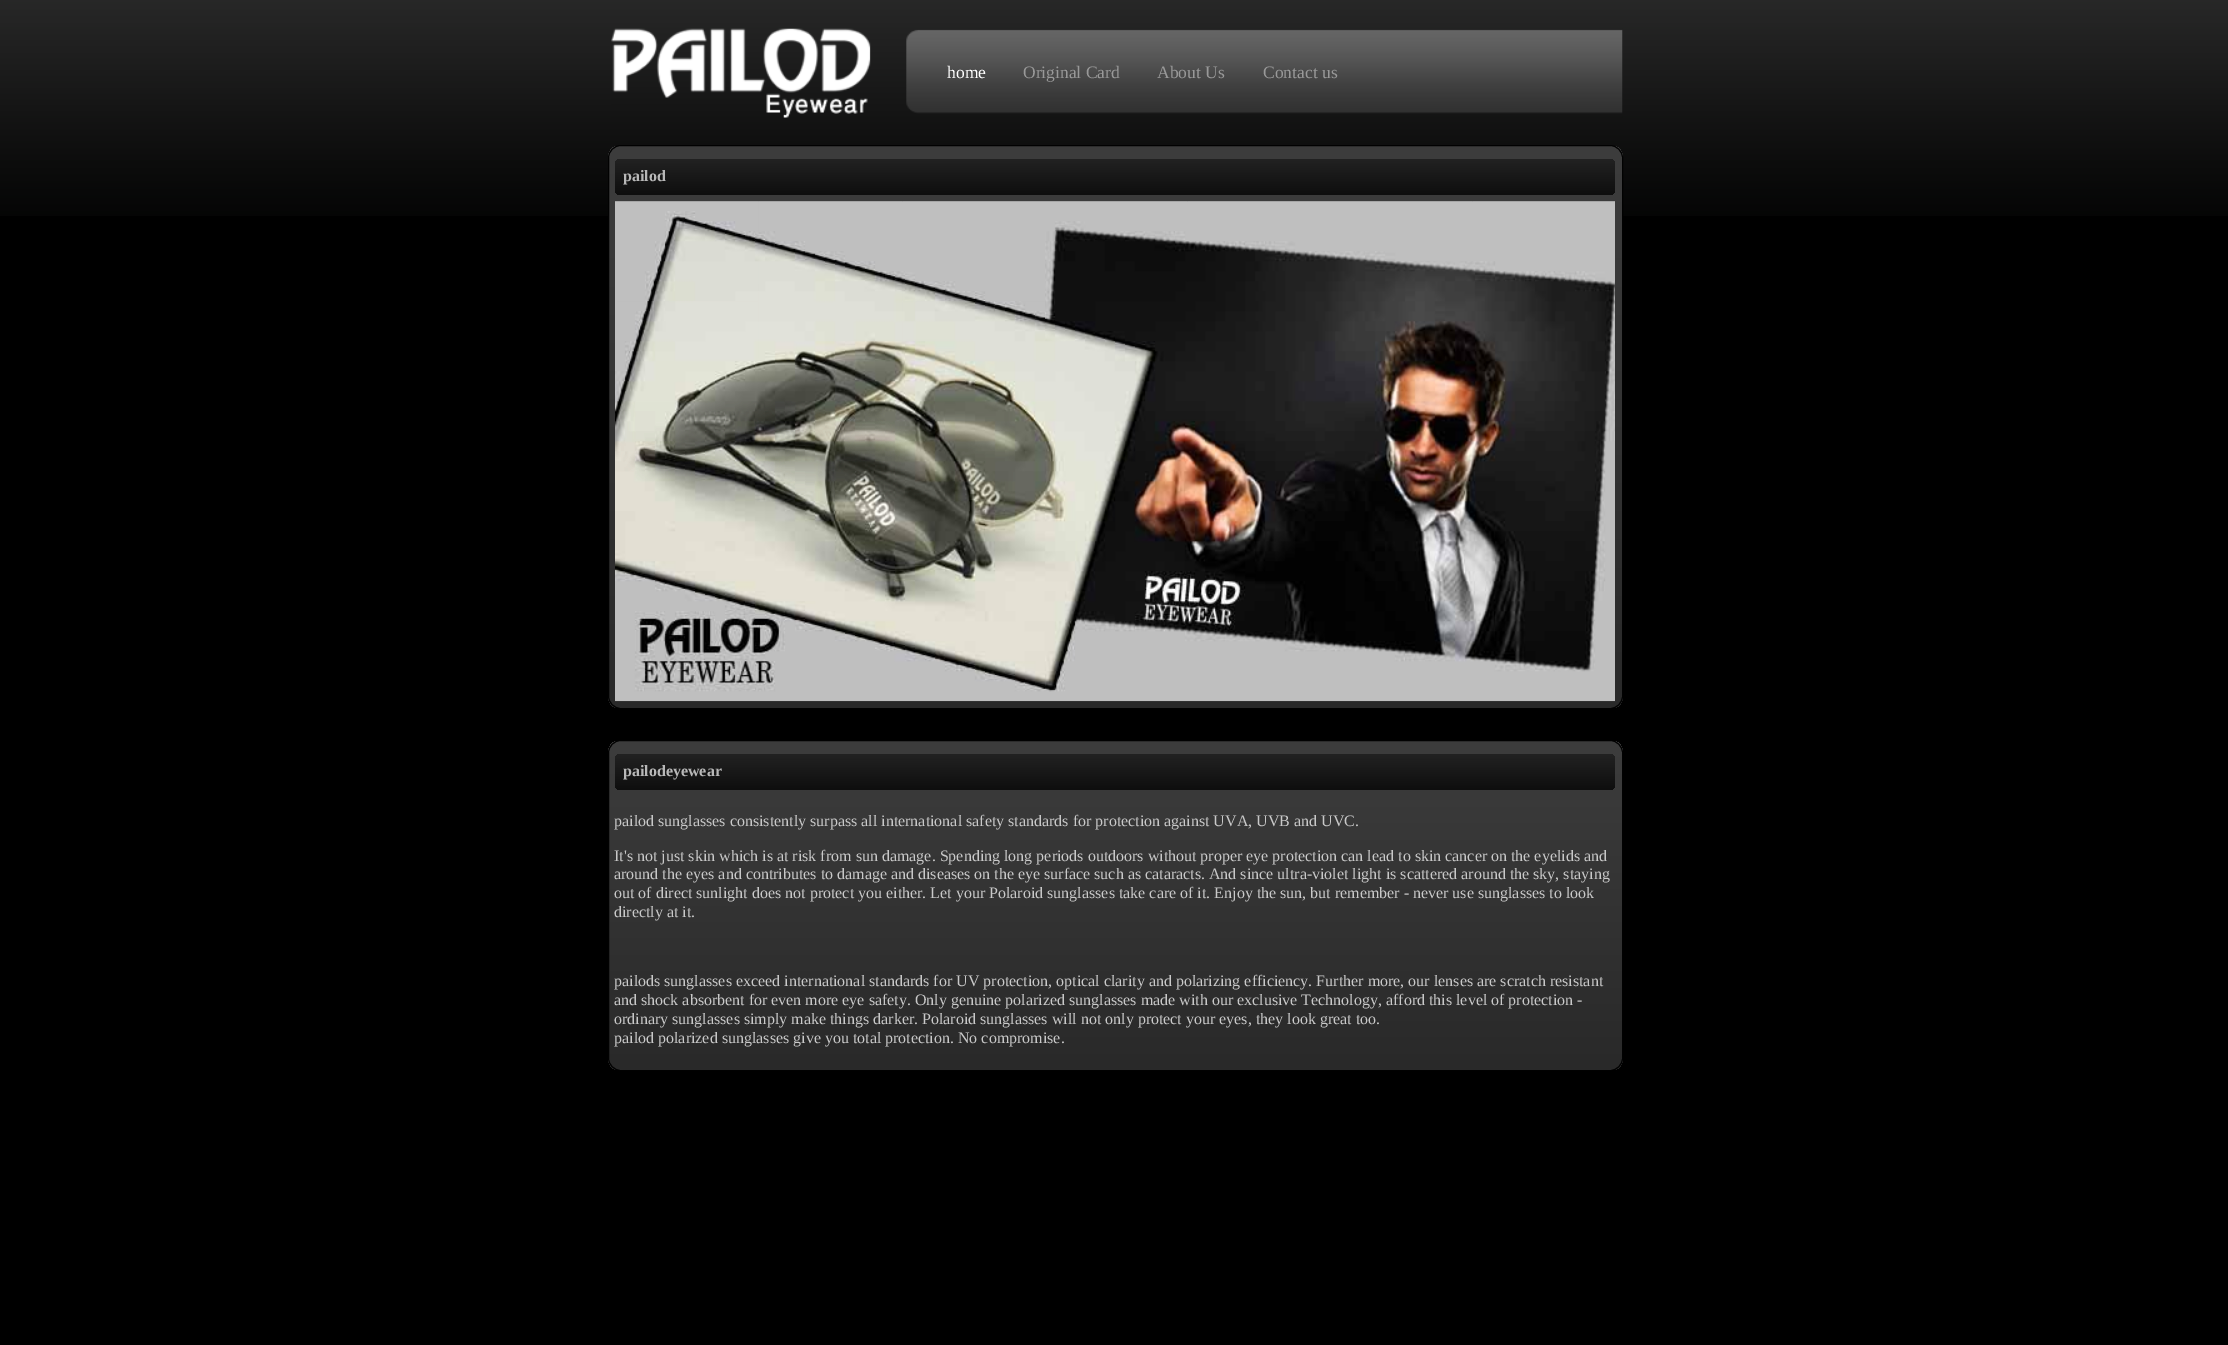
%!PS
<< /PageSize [2228 1345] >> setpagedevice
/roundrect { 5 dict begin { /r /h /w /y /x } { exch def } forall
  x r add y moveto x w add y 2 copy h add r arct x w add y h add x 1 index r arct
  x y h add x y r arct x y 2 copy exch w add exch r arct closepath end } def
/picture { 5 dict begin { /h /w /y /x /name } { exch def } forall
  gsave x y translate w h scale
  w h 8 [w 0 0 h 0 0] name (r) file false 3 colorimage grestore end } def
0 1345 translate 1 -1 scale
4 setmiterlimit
0 setgray
0 0 2228 1345 rectfill
(img1.rgb) 0 0 2228 216 picture
(img2.rgb) 611 28 1012 90 picture
/LiberationSerif-Regular [17.5 0 0 -17.5 0 0] selectfont
1 setgray
947 78 moveto (home) show
0.6 setgray
1023 78 moveto (Original Card) show
1157 78 moveto (About Us) show
1263 78 moveto (Contact us) show
gsave
608 145 1015 564 13 roundrect clip newpath
gsave newpath 608 146 moveto 1623 146 lineto 1623 708 lineto 608 708 lineto closepath clip newpath
<< /ShadingType 2 /ColorSpace /DeviceRGB /Coords [609 146 609 708] /Extend [true true] /Function << /FunctionType 2 /Domain [0 1] /C0 [0.239 0.239 0.239] /C1 [0.161 0.161 0.161] /N 1 >> >> shfill grestore
grestore
0.004 setgray
608.5 145.5 1014 563 12.5 roundrect stroke
gsave 615 159 1000 36 6 roundrect clip newpath
<< /ShadingType 2 /ColorSpace /DeviceRGB /Coords [615 159 615 195] /Extend [true true] /Function << /FunctionType 2 /Domain [0 1] /C0 [0.133 0.133 0.133] /C1 [0.055 0.055 0.055] /N 1 >> >> shfill grestore
/LiberationSerif-Bold [16 0 0 -16 0 0] selectfont
0.722 setgray
623 181 moveto (pailod) show
(img3.rgb) 615 201 1000 501 picture
(img4.rgb) 615 201 144 101 picture
(img5.rgb) 758 201 145 83 picture
(img6.rgb) 902 201 143 101 picture
(img7.rgb) 1045 201 143 98 picture
(img8.rgb) 1187 201 143 1 picture
(img9.rgb) 1330 201 143 70 picture
(img10.rgb) 1472 201 143 70 picture
(img11.rgb) 617 301 142 101 picture
(img14.rgb) 758 358 145 44 picture
(img12.rgb) 902 301 143 101 picture
(img13.rgb) 1045 317 1 2 picture
(img16.rgb) 1384 387 89 15 picture
(img15.rgb) 1472 386 1 14 picture
(img17.rgb) 617 401 142 79 picture
(img18.rgb) 758 401 145 101 picture
(img19.rgb) 902 401 114 101 picture
gsave
608 740 1015 331 13 roundrect clip newpath
gsave newpath 608 741 moveto 1623 741 lineto 1623 1070 lineto 608 1070 lineto closepath clip newpath
<< /ShadingType 2 /ColorSpace /DeviceRGB /Coords [609 741 609 1070] /Extend [true true] /Function << /FunctionType 2 /Domain [0 1] /C0 [0.239 0.239 0.239] /C1 [0.161 0.161 0.161] /N 1 >> >> shfill grestore
grestore
0.004 setgray
608.5 740.5 1014 330 12.5 roundrect stroke
gsave 615 754 1000 36 6 roundrect clip newpath
<< /ShadingType 2 /ColorSpace /DeviceRGB /Coords [615 754 615 790] /Extend [true true] /Function << /FunctionType 2 /Domain [0 1] /C0 [0.133 0.133 0.133] /C1 [0.055 0.055 0.055] /N 1 >> >> shfill grestore
0.722 setgray
623 776 moveto (pailodeyewear) show
/LiberationSerif-Regular [16 0 0 -16 0 0] selectfont
0.788 setgray
614 826 moveto (pailod sunglasses consistently surpass all international safety standards for protection against UVA, UVB and UVC.) show
614 861 moveto (It's not just skin which is at risk from sun damage. Spending long periods outdoors without proper eye protection can lead to skin cancer on the eyelids and) show
614 879 moveto (around the eyes and contributes to damage and diseases on the eye surface such as cataracts. And since ultra-violet light is scattered around the sky, staying) show
614 898 moveto (out of direct sunlight does not protect you either. Let your Polaroid sunglasses take care of it. Enjoy the sun, but remember - never use sunglasses to look) show
614 917 moveto (directly at it.) show
614 986 moveto (pailods sunglasses exceed international standards for UV protection, optical clarity and polarizing efficiency. Further more, our lenses are scratch resistant) show
614 1005 moveto (and shock absorbent for even more eye safety. Only genuine polarized sunglasses made with our exclusive Technology, afford this level of protection -) show
614 1024 moveto (ordinary sunglasses simply make things darker. Polaroid sunglasses will not only protect your eyes, they look great too.) show
614 1043 moveto (pailod polarized sunglasses give you total protection. No compromise.) show
showpage
